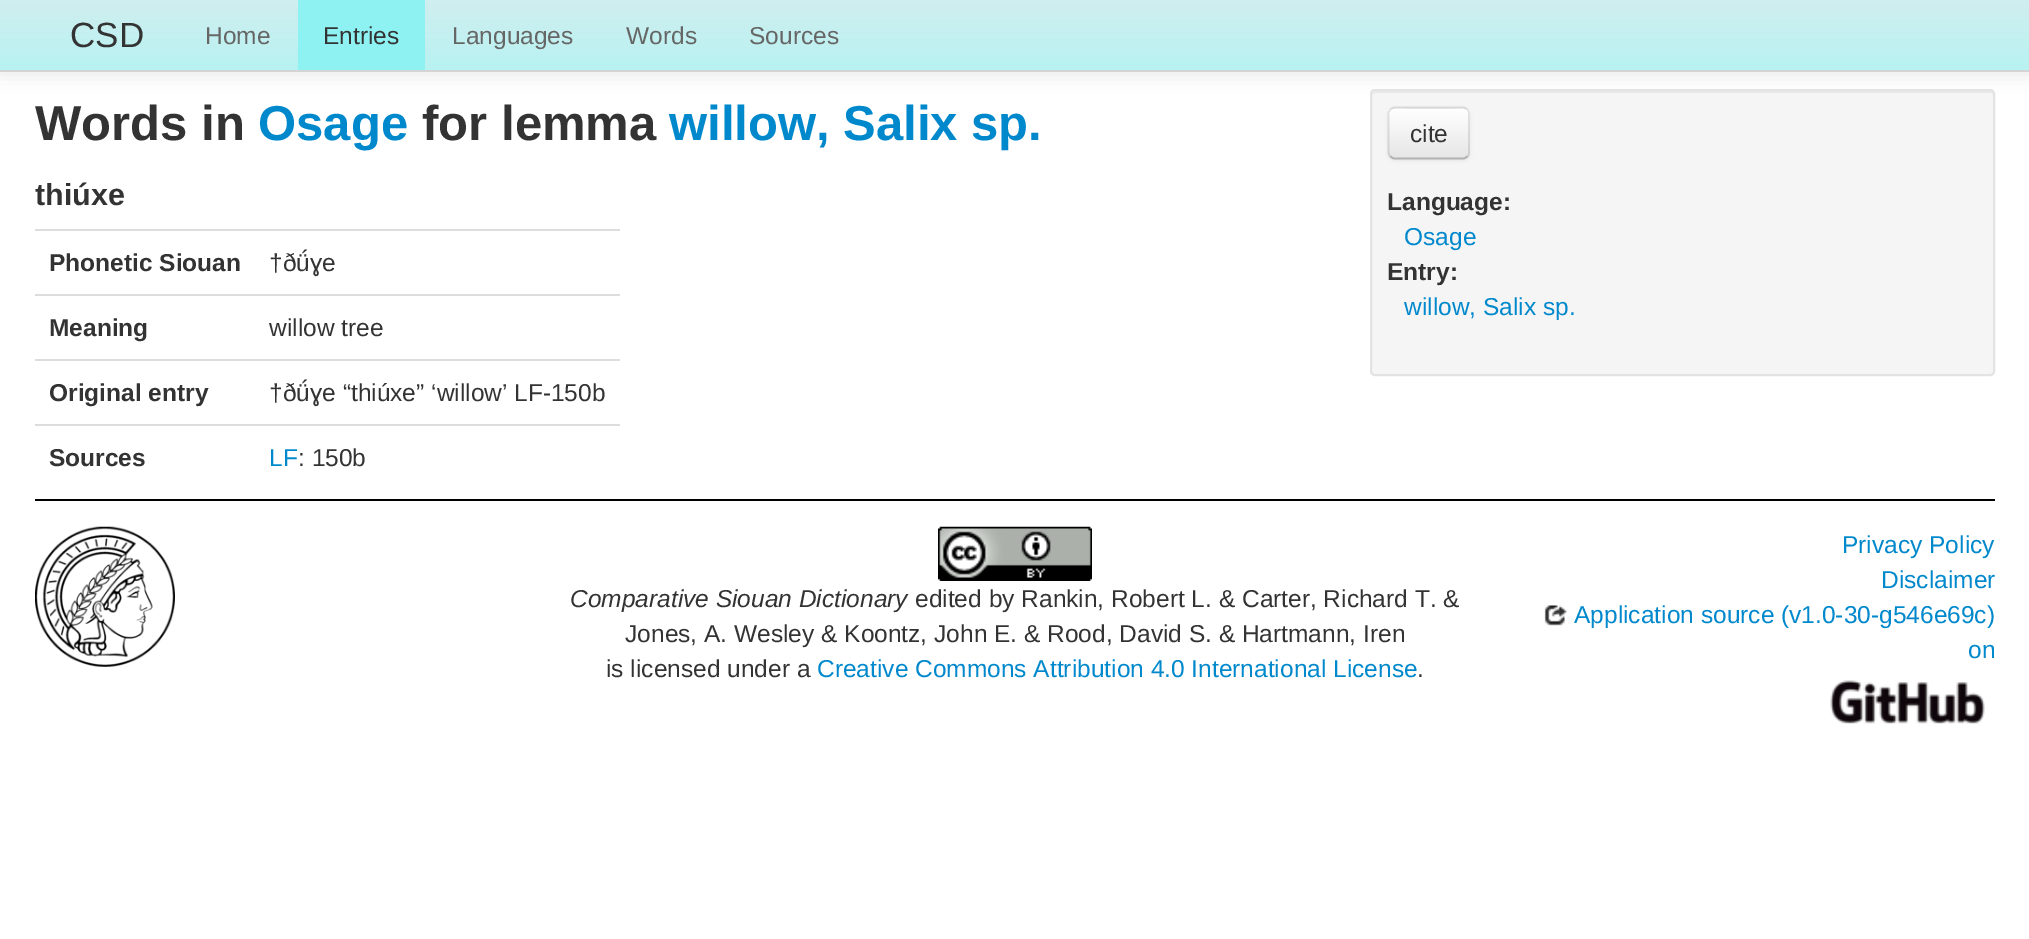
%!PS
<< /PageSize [2029 939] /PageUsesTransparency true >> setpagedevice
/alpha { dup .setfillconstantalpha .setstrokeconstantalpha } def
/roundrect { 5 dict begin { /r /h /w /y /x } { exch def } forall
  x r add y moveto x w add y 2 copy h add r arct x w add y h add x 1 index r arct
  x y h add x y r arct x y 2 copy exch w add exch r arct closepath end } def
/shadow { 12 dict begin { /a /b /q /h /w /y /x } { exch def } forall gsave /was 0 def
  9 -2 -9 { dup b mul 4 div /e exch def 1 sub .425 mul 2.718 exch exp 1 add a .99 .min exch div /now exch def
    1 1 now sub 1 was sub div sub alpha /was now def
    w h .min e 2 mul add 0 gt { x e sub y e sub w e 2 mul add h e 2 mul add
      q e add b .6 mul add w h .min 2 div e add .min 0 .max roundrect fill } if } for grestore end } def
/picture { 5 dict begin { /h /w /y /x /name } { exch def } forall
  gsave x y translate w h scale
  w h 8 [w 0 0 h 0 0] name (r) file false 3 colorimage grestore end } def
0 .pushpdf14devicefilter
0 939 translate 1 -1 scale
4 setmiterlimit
1 setgray
0 0 2029 939 rectfill
0 setgray
0 2 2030 72 0 9 0.1 shadow
gsave newpath 0 0 moveto 2029 0 lineto 2029 70 lineto 0 70 lineto closepath clip newpath
<< /ShadingType 2 /ColorSpace /DeviceRGB /Coords [1015 0 1015 70] /Extend [true true] /Function << /FunctionType 2 /Domain [0 1] /C0 [0.816 0.933 0.937] /C1 [0.722 0.949 0.949] /N 1 >> >> shfill grestore
0.831 setgray
0 70 2029 2 rectfill
/LiberationSans-Regular [35 0 0 -35 0 0] selectfont
0.2 setgray
70 47 moveto (CSD) show
/LiberationSans-Regular [24.5 0 0 -24.5 0 0] selectfont
0.4 setgray
205 44 moveto (Home) show
0.557 0.949 0.949 setrgbcolor
298 0 127 70 rectfill
0.2 setgray
323 44 moveto (Entries) show
0.4 setgray
452 44 moveto (Languages) show
626 44 moveto (Words) show
749 44 moveto (Sources) show
/LiberationSans-Bold [49 0 0 -49 0 0] selectfont
0.2 setgray
35 140 moveto (Words in) show
0 0.533 0.8 setrgbcolor
258 140 moveto (Osage) show
0.2 setgray
422 140 moveto (for lemma) show
0 0.533 0.8 setrgbcolor
669 140 moveto (willow, Salix sp.) show
/LiberationSans-Bold [30.5 0 0 -30.5 0 0] selectfont
0.2 setgray
35 205 moveto (thiúxe) show
/LiberationSans-Bold [24.5 0 0 -24.5 0 0] selectfont
49 271 moveto (Phonetic Siouan) show
0.867 setgray
35 229 585 2 rectfill
/LiberationSans-Regular [24.5 0 0 -24.5 0 0] selectfont
0.2 setgray
269 271 moveto (†ðǘɣe) show
/LiberationSans-Bold [24.5 0 0 -24.5 0 0] selectfont
49 336 moveto (Meaning) show
0.867 setgray
35 294 585 2 rectfill
/LiberationSans-Regular [24.5 0 0 -24.5 0 0] selectfont
0.2 setgray
269 336 moveto (willow tree) show
/LiberationSans-Bold [24.5 0 0 -24.5 0 0] selectfont
49 401 moveto (Original entry) show
0.867 setgray
35 359 585 2 rectfill
/LiberationSans-Regular [24.5 0 0 -24.5 0 0] selectfont
0.2 setgray
269 401 moveto (†ðǘɣe “thiúxe” ‘willow’ LF-150b) show
/LiberationSans-Bold [24.5 0 0 -24.5 0 0] selectfont
49 466 moveto (Sources) show
0.867 setgray
35 424 585 2 rectfill
/LiberationSans-Regular [24.5 0 0 -24.5 0 0] selectfont
0 0.533 0.8 setrgbcolor
269 466 moveto (LF) show
0.2 setgray
298 466 moveto (: 150b) show
0.961 setgray
1370 89 625 287 5 roundrect fill
0.914 setgray
newpath 1376 93 moveto 1990 93 lineto 1992 93 1993 94 1993 96 curveto 1993 95 lineto 1993 93 1991 91 1989 91 curveto 1376 91 lineto 1374 91 1372 93 1372 95 curveto 1372 96 lineto 1372 94 1374 93 1376 93 curveto closepath fill
0.89 setgray
2 setlinewidth
1371 90 623 285 4 roundrect stroke
0 setgray
1388 109 82 52 7 2 0.05 shadow
gsave
1388 107 82 52 7 roundrect clip newpath
gsave newpath 1388 109 moveto 1470 109 lineto 1470 158 lineto 1388 158 lineto closepath clip newpath
<< /ShadingType 2 /ColorSpace /DeviceRGB /Coords [1429 109 1429 158] /Extend [true true] /Function << /FunctionType 2 /Domain [0 1] /C0 [1 1 1] /C1 [0.902 0.902 0.902] /N 1 >> >> shfill grestore
grestore
1 setgray
newpath 1395 110 moveto 1463 110 lineto 1466 110 1468 113 1468 116 curveto 1468 106 1460 109 1452 109 curveto 1406 109 lineto 1398 109 1390 106 1390 116 curveto 1390 113 1392 110 1395 110 curveto closepath fill
0.702 setgray
1.8 setlinewidth
newpath 1467.5 156.5 moveto 1466 157.5 1464.5 158.5 1463 158.5 curveto 1395 158.5 lineto 1393 158.5 1391.5 157.5 1390.5 156.5 curveto stroke
0.1 alpha
0 setgray
newpath 1390.5 156.5 moveto 1389.5 155.5 1388.5 154 1388.5 152 curveto 1388.5 114 lineto 1388.5 112 1389.5 110.5 1390.5 109.5 curveto 1391.5 108.5 1393 107.5 1395 107.5 curveto 1463 107.5 lineto 1464.5 107.5 1466 108.5 1467.5 109.5 curveto 1468.5 110.5 1469 112 1469 114 curveto 1469 152 lineto 1469 154 1468.5 155.5 1467.5 156.5 curveto stroke
1 alpha
0.2 setgray
1410 142 moveto (cite) show
/LiberationSans-Bold [24.5 0 0 -24.5 0 0] selectfont
1387 210 moveto (Language:) show
/LiberationSans-Regular [24.5 0 0 -24.5 0 0] selectfont
0 0.533 0.8 setrgbcolor
1404 245 moveto (Osage) show
/LiberationSans-Bold [24.5 0 0 -24.5 0 0] selectfont
0.2 setgray
1387 280 moveto (Entry:) show
/LiberationSans-Regular [24.5 0 0 -24.5 0 0] selectfont
0 0.533 0.8 setrgbcolor
1404 315 moveto (willow, Salix sp.) show
0 setgray
35 499 1960 2 rectfill
(img1.rgb) 35 526 140 141 picture
(img2.rgb) 938 526 154 55 picture
/LiberationSans-Italic [24.5 0 0 -24.5 0 0] selectfont
0.2 setgray
570 607 moveto (Comparative Siouan Dictionary) show
/LiberationSans-Regular [24.5 0 0 -24.5 0 0] selectfont
915 607 moveto (edited by Rankin, Robert L. & Carter, Richard T. &) show
625 642 moveto (Jones, A. Wesley & Koontz, John E. & Rood, David S. & Hartmann, Iren) show
606 677 moveto (is licensed under a) show
0 0.533 0.8 setrgbcolor
817 677 moveto (Creative Commons Attribution 4.0 International License) show
0.2 setgray
1417 677 moveto (.) show
0 0.533 0.8 setrgbcolor
1842 553 moveto (Privacy Policy) show
1881 588 moveto (Disclaimer) show
(img3.rgb) 1544 605 23 21 picture
1574 623 moveto (Application source \(v1.0-30-g546e69c\)) show
1968 658 moveto (on) show
(img4.rgb) 1830 680 155 44 picture
.poppdf14devicefilter showpage
